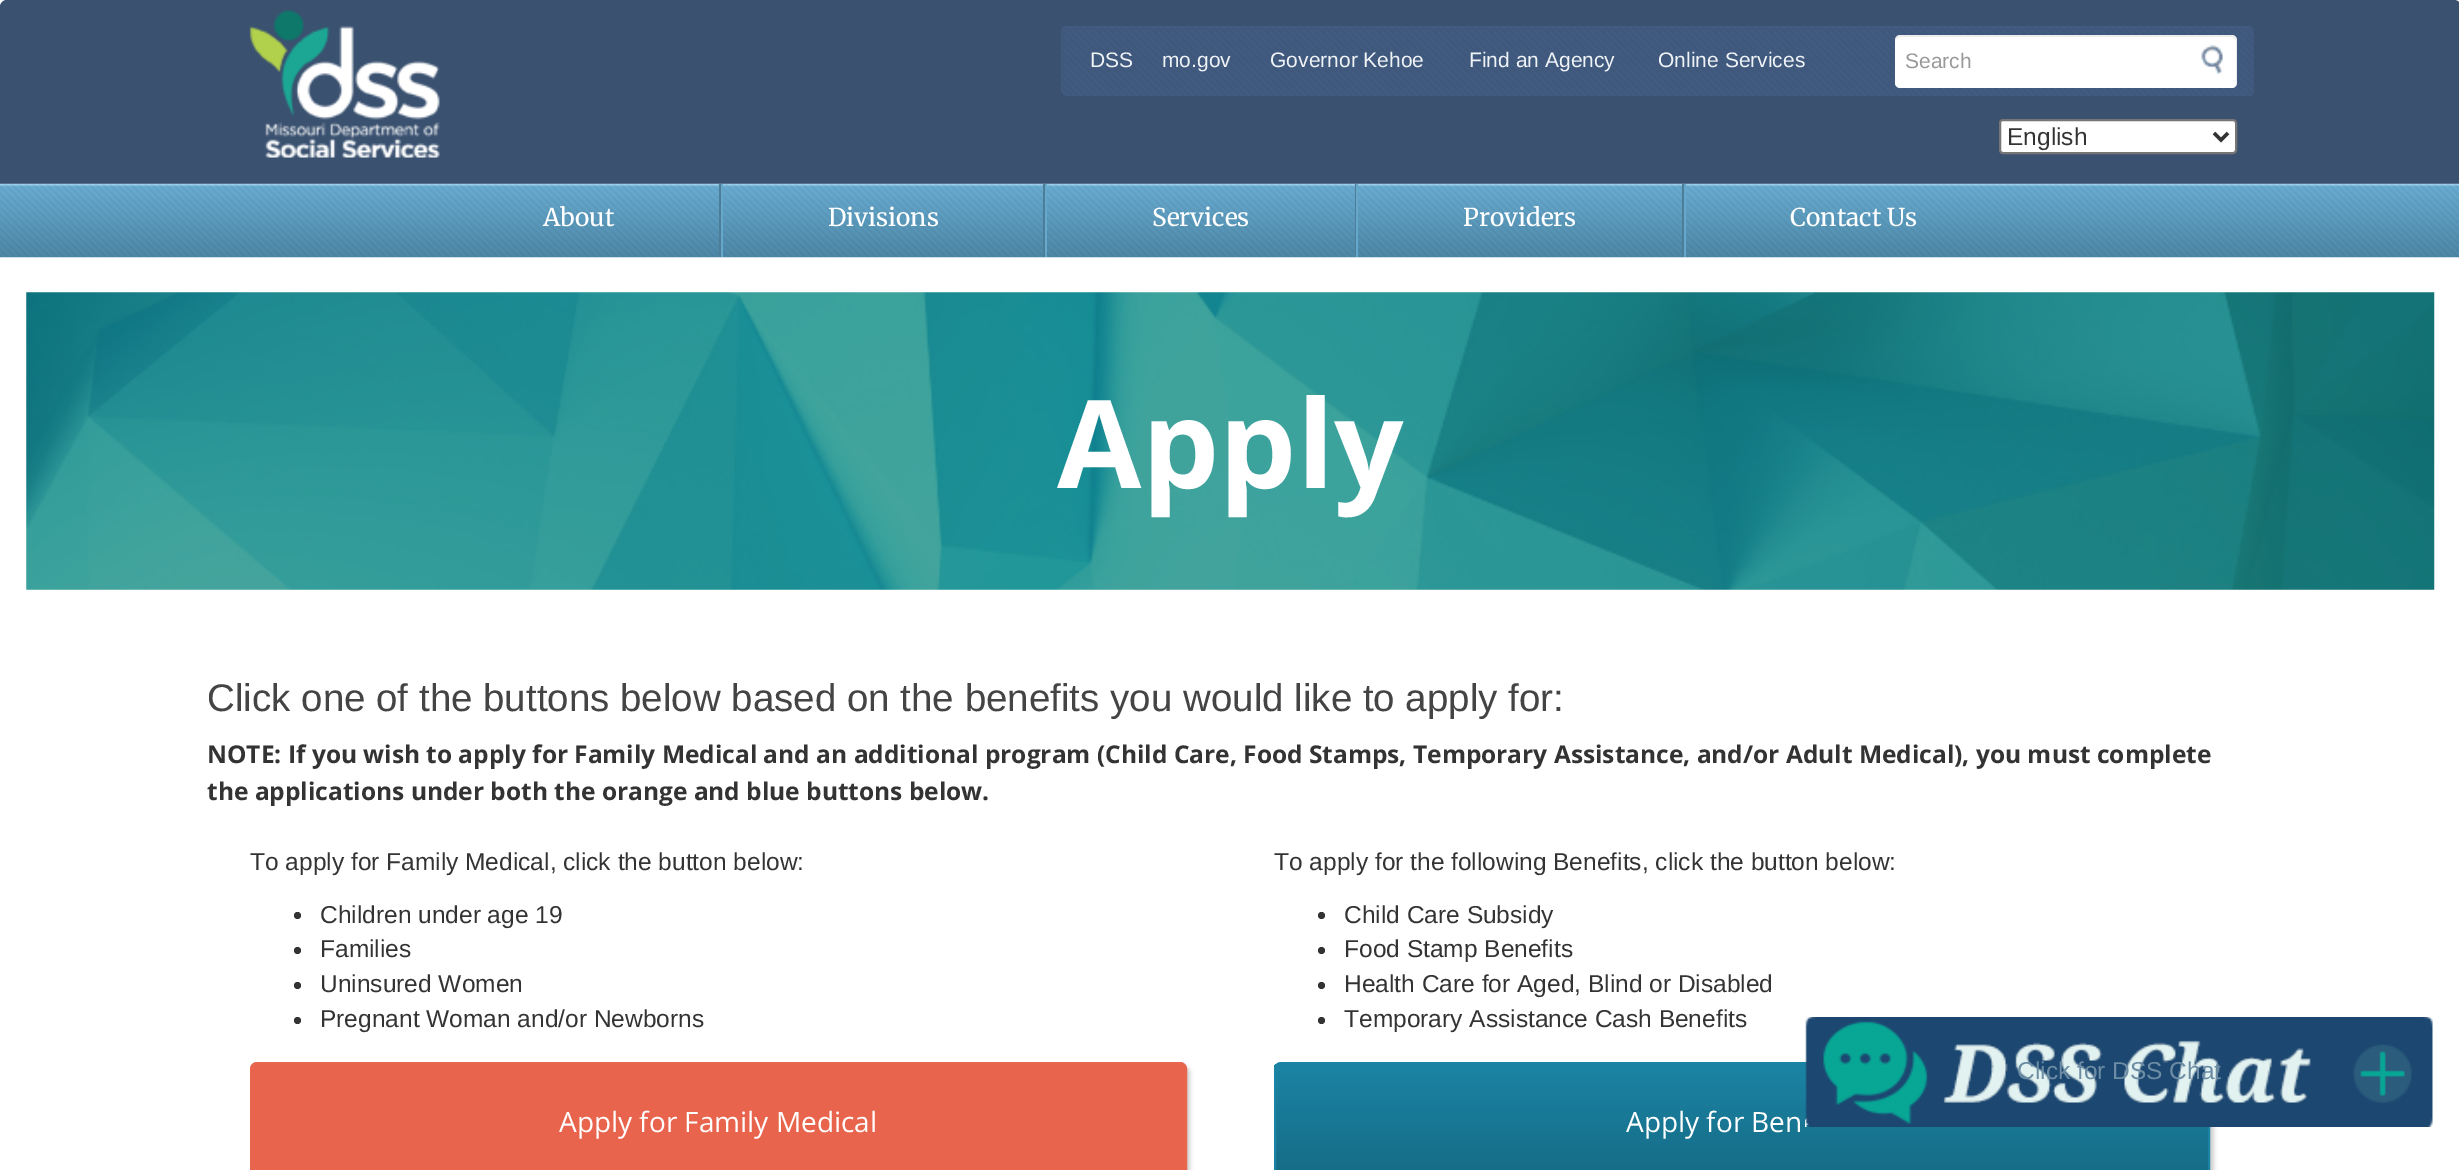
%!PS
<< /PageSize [2459 1170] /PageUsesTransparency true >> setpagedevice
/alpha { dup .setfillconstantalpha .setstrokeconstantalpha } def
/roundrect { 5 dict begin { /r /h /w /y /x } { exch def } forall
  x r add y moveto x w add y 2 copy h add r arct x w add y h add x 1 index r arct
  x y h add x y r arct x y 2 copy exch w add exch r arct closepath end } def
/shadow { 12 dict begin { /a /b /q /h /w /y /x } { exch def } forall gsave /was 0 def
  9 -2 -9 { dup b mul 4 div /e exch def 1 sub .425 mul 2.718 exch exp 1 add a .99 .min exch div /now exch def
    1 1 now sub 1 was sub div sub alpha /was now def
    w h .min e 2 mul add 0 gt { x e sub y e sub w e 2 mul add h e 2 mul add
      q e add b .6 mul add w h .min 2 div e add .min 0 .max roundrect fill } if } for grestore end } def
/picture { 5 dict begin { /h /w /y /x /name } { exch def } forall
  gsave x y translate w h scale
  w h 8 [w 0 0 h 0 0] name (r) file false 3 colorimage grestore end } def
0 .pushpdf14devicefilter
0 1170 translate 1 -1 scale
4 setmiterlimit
1 setgray
0 0 2459 1170 rectfill
0.227 0.318 0.439 setrgbcolor
0 0 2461 257 7 roundrect fill
(img1.rgb) 249 10 191 148 picture
0.255 0.357 0.506 setrgbcolor
1061 26 1193 70 5 roundrect fill
(img2.rgb) 1061 27 1193 69 picture
/LiberationSans-Regular [21 0 0 -21 0 0] selectfont
0.937 0.953 0.965 setrgbcolor
1090 67 moveto (DSS) show
1162 67 moveto (mo.gov) show
1270 67 moveto (Governor Kehoe) show
1469 67 moveto (Find an Agency) show
1658 67 moveto (Online Services) show
1 setgray
1895 35 342 53 5 roundrect fill
0.07 alpha
0 setgray
newpath 1900 37 moveto 2231 37 lineto 2234 37 2236 39 2236 42 curveto 2236 84 lineto 2235 87 lineto 2236 86 2237 84 2237 83 curveto 2237 40 lineto 2237 37 2235 35 2232 35 curveto 1900 35 lineto 1897 35 1895 37 1895 40 curveto 1895 42 lineto 1895 39 1898 37 1900 37 curveto closepath fill
1 alpha
0.6 setgray
1905 68 moveto (Search) show
(img3.rgb) 2201 45 22 29 picture
1 setgray
2000 120 236 33 3 roundrect gsave fill grestore
0.463 setgray
2 setlinewidth
stroke
0.2 setgray
3.5 setlinewidth
newpath 2214 133 moveto 2221 140 lineto 2228 133 lineto stroke
/LiberationSans-Regular [24.5 0 0 -24.5 0 0] selectfont
2007 145 moveto (English) show
(img4.rgb) 0 183 2459 75 picture
0.298 0.494 0.6 setrgbcolor
719 184 2 73 rectfill
/Merriweather-Light [24.5 0 0 -24.5 0 0] selectfont
1 setgray
543 226 moveto (About) show
0.298 0.494 0.6 setrgbcolor
1043 184 2 73 rectfill
0.4 0.659 0.8 setrgbcolor
721 184 2 73 rectfill
1 setgray
828 226 moveto (Divisions) show
0.298 0.494 0.6 setrgbcolor
1355 184 1 73 rectfill
0.4 0.659 0.8 setrgbcolor
1045 184 2 73 rectfill
1 setgray
1152 226 moveto (Services) show
0.298 0.494 0.6 setrgbcolor
1682 184 2 73 rectfill
0.4 0.659 0.8 setrgbcolor
1356 184 2 73 rectfill
1 setgray
1463 226 moveto (Providers) show
0.4 0.659 0.8 setrgbcolor
1684 184 2 73 rectfill
1 setgray
1790 226 moveto (Contact Us) show
(img5.rgb) 26 292 2409 298 picture
/OpenSans-Bold [122.5 0 0 -122.5 0 0] selectfont
1057 488 moveto (Apply) show
/LiberationSans-Regular [38.5 0 0 -38.5 0 0] selectfont
0.267 setgray
207 711 moveto (Click one of the buttons below based on the benefits you would like to apply for:) show
/OpenSans-Bold [24.5 0 0 -24.5 0 0] selectfont
0.2 setgray
207 763 moveto (NOTE: If you wish to apply for Family Medical and an additional program \(Child Care, Food Stamps, Temporary Assistance, and/or Adult Medical\), you must complete) show
207 800 moveto (the applications under both the orange and blue buttons below.) show
/LiberationSans-Regular [24.5 0 0 -24.5 0 0] selectfont
250 870 moveto (To apply for Family Medical, click the button below:) show
newpath 297.5 915.5 3.5 0 360 arc closepath fill
320 923 moveto (Children under age 19) show
newpath 297.5 950.5 3.5 0 360 arc closepath fill
320 957 moveto (Families) show
newpath 297.5 985.5 3.5 0 360 arc closepath fill
320 992 moveto (Uninsured Women) show
newpath 297.5 1020.5 3.5 0 360 arc closepath fill
320 1027 moveto (Pregnant Woman and/or Newborns) show
0.812 setgray
254 1066 936 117 7 2 1 shadow
0.91 0.392 0.302 setrgbcolor
251 1063 935 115 6 roundrect gsave fill grestore
0.91 0.396 0.306 setrgbcolor
2 setlinewidth
stroke
/OpenSans-Regular [28 0 0 -28 0 0] selectfont
1 setgray
559 1132 moveto (Apply for Family Medical) show
/LiberationSans-Regular [24.5 0 0 -24.5 0 0] selectfont
0.2 setgray
1274 870 moveto (To apply for the following Benefits, click the button below:) show
newpath 1321.5 915.5 3.5 0 360 arc closepath fill
1344 923 moveto (Child Care Subsidy) show
newpath 1321.5 950.5 3.5 0 360 arc closepath fill
1344 957 moveto (Food Stamp Benefits) show
newpath 1321.5 985.5 3.5 0 360 arc closepath fill
1344 992 moveto (Health Care for Aged, Blind or Disabled) show
newpath 1321.5 1020.5 3.5 0 360 arc closepath fill
1344 1027 moveto (Temporary Assistance Cash Benefits) show
0.812 setgray
1278 1066 936 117 7 2 1 shadow
gsave
1274 1062 936 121 7 roundrect clip newpath
gsave newpath 1274 1064 moveto 2208 1064 lineto 2208 1170 lineto 1274 1170 lineto closepath clip newpath
<< /ShadingType 2 /ColorSpace /DeviceRGB /Coords [1742 1064 1742 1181] /Extend [true true] /Function << /FunctionType 2 /Domain [0 1] /C0 [0.106 0.518 0.643] /C1 [0.086 0.42 0.522] /N 1 >> >> shfill grestore
grestore
0.106 0.518 0.643 setrgbcolor
1275 1063 934 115 6 roundrect stroke
/OpenSans-Regular [28 0 0 -28 0 0] selectfont
1 setgray
1626 1132 moveto (Apply for Ben) show
(img6.rgb) 1805 1017 628 110 picture
/LiberationSans-Regular [24.5 0 0 -24.5 0 0] selectfont
0.424 0.549 0.643 setrgbcolor
2017 1079 moveto (Click for DSS Chat) show
.poppdf14devicefilter showpage
